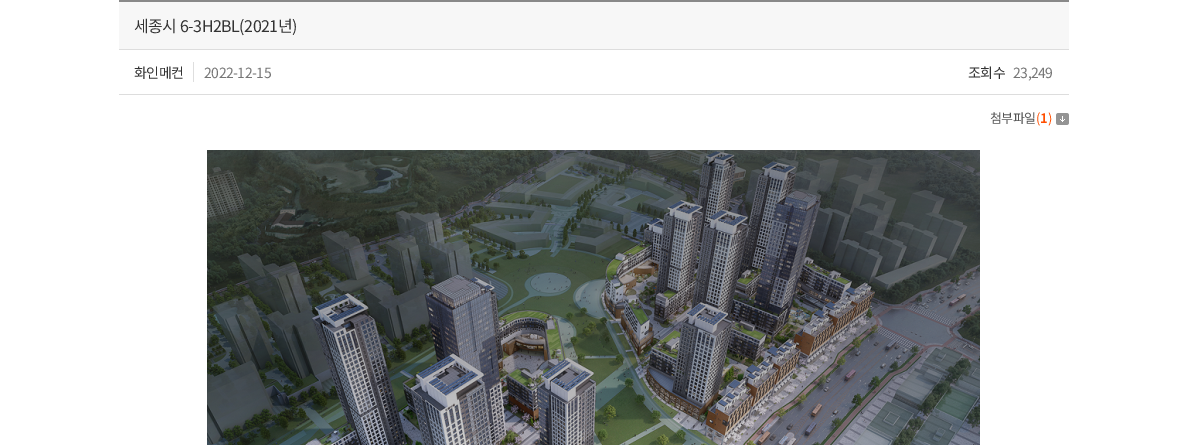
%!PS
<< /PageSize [1187 445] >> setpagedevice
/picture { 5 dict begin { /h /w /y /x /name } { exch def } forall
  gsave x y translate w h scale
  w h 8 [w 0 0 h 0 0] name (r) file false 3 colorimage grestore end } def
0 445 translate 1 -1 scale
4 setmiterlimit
1 setgray
0 0 1187 445 rectfill
0.537 setgray
119 0 950 2 rectfill
0.969 setgray
119 2 950 47 rectfill
0.867 setgray
119 49 950 1 rectfill
/NotoSansKR-Regular [16 0 0 -16 0 0] selectfont
0.2 setgray
134 32 moveto -0.5 0 (세종시 6-3H2BL\(2021년\)) ashow
0.867 setgray
119 94 950 1 rectfill
/NotoSansKR-Regular [14 0 0 -14 0 0] selectfont
0.2 setgray
134 78 moveto -0.5 0 (화인메컨) ashow
0.871 setgray
193 62 1 20 rectfill
0.463 setgray
204 78 moveto -0.5 0 (2022-12-15) ashow
0.2 setgray
968 78 moveto -0.5 0 (조회수) ashow
0.463 setgray
1013 78 moveto -0.5 0 (23,249) ashow
/NotoSansKR-Regular [13 0 0 -13 0 0] selectfont
0.333 setgray
990 123 moveto -0.5 0 (첨부파일) ashow
1 0.306 0 setrgbcolor
1036 123 moveto -0.5 0 (\() ashow
/NotoSansKR-Bold [13 0 0 -13 0 0] selectfont
1040 123 moveto -0.5 0 (1) ashow
/NotoSansKR-Regular [13 0 0 -13 0 0] selectfont
1048 123 moveto -0.5 0 (\)) ashow
(img1.rgb) 1056 113 13 12 picture
(img2.rgb) 207 150 773 295 picture
showpage
